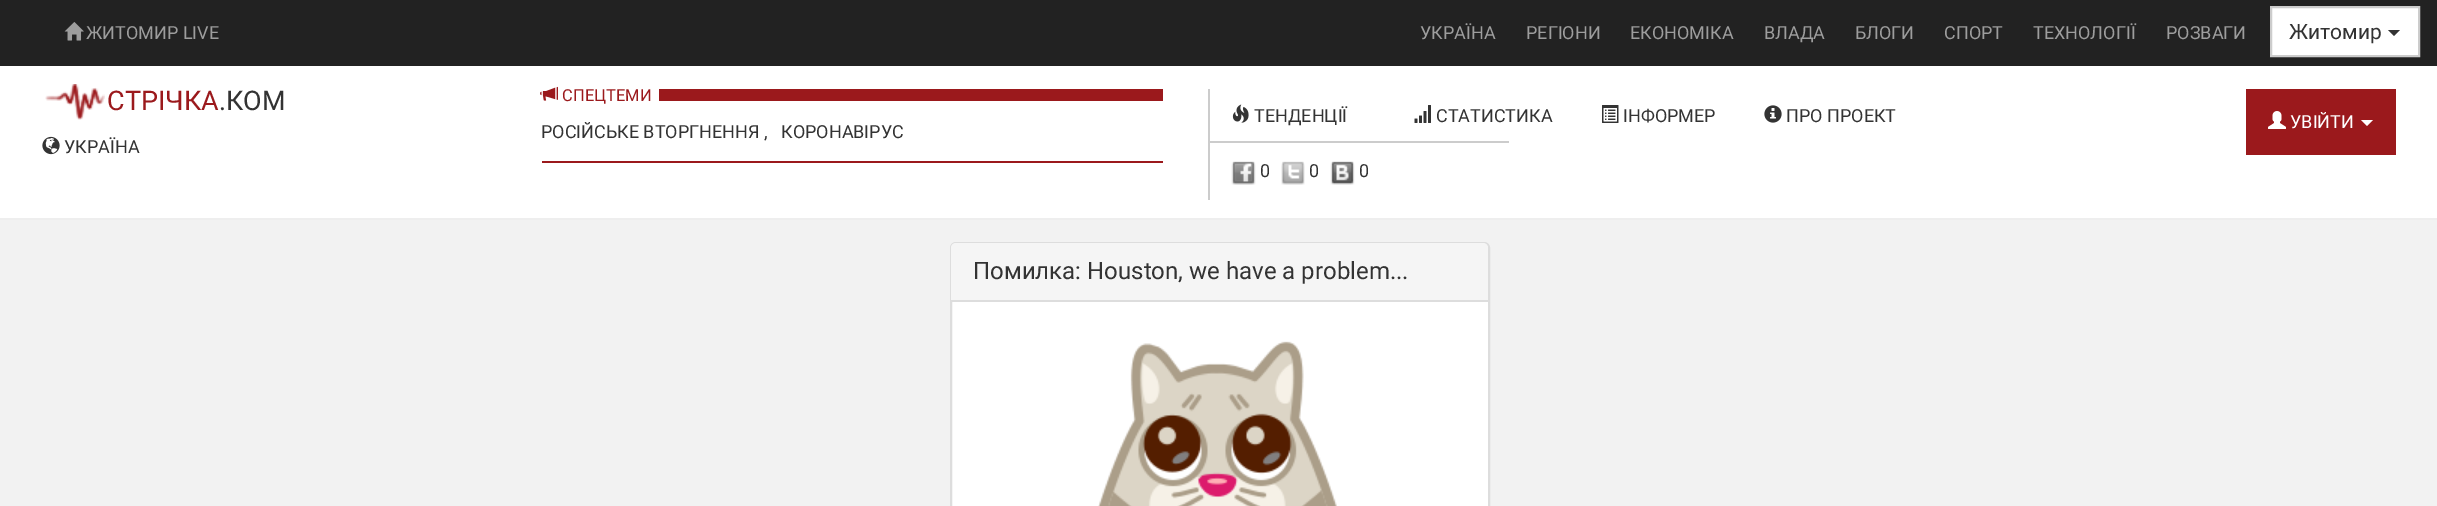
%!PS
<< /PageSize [2437 506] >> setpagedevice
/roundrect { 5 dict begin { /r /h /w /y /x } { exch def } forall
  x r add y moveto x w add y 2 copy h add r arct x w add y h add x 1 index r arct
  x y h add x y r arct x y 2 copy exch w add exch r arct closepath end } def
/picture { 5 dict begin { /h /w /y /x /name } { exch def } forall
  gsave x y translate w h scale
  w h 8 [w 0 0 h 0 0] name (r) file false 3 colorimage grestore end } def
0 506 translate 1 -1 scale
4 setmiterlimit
0.949 setgray
0 0 2437 506 rectfill
0.133 setgray
0 0 2437 66 rectfill
(img1.rgb) 64 22 20 19 picture
/Roboto-Regular [18 0 0 -18 0 0] selectfont
0.616 setgray
86 39 moveto (ЖИТОМИР LIVE) show
1420 39 moveto (УКРАЇНА) show
1526 39 moveto (РЕГІОНИ) show
1630 39 moveto (ЕКОНОМІКА) show
1764 39 moveto (ВЛАДА) show
1855 39 moveto (БЛОГИ) show
1944 39 moveto (СПОРТ) show
2033 39 moveto (ТЕХНОЛОГІЇ) show
2166 39 moveto (РОЗВАГИ) show
1 setgray
newpath 2271 7 moveto 2419 7 lineto 2419 56 lineto 2271 56 lineto closepath gsave fill grestore
0.8 setgray
2 setlinewidth
stroke
/Roboto-Regular [21 0 0 -21 0 0] selectfont
0.2 setgray
2289 39 moveto (Житомир) show
newpath 2388 30 moveto 2400 30 lineto 2394 36 lineto closepath fill
1 setgray
0 66 2437 152 rectfill
0.933 setgray
0 218 2437 2 rectfill
(img2.rgb) 45 84 60 36 picture
/Roboto-Regular [27 0 0 -27 0 0] selectfont
0.608 0.098 0.11 setrgbcolor
107 110 moveto (СТРІЧКА) show
0.2 setgray
219 110 moveto (.КОМ) show
(img3.rgb) 42 136 18 19 picture
/Roboto-Regular [18 0 0 -18 0 0] selectfont
64 153 moveto (УКРАЇНА) show
0.608 0.098 0.11 setrgbcolor
659 89 504 12 rectfill
542 161 621 2 rectfill
(img4.rgb) 540 86 18 15 picture
/Roboto-Regular [16.5 0 0 -16.5 0 0] selectfont
562 101 moveto (СПЕЦТЕМИ) show
/Roboto-Regular [18 0 0 -18 0 0] selectfont
0.2 setgray
541 138 moveto (РОСІЙСЬКЕ ВТОРГНЕННЯ ,) show
781 138 moveto (КОРОНАВІРУС) show
0.8 setgray
1208 89 2 111 rectfill
(img5.rgb) 1232 104 17 19 picture
0.2 setgray
1254 122 moveto (ТЕНДЕНЦІЇ) show
(img6.rgb) 1414 105 17 18 picture
1436 122 moveto (СТАТИСТИКА) show
(img7.rgb) 1602 105 17 18 picture
1623 122 moveto (ІНФОРМЕР) show
(img8.rgb) 1764 105 18 18 picture
1786 122 moveto (ПРО ПРОЕКТ) show
0.8 setgray
1209 141 300 2 rectfill
(img9.rgb) 1231 161 25 24 picture
0.2 setgray
1260 177 moveto (0) show
(img10.rgb) 1281 161 24 24 picture
1309 177 moveto (0) show
(img11.rgb) 1330 161 25 24 picture
1359 177 moveto (0) show
0.608 0.098 0.11 setrgbcolor
2246 89 150 66 rectfill
(img12.rgb) 2268 111 18 18 picture
1 setgray
2290 128 moveto (УВІЙТИ) show
newpath 2361 120 moveto 2373 120 lineto 2367 126 lineto closepath fill
951 243 538 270 5 roundrect gsave fill grestore
0.867 setgray
stroke
0.961 setgray
newpath 956 243 moveto 1483 243 lineto 1486 243 1488 245 1488 248 curveto 1488 302 lineto 951 302 lineto 951 248 lineto 951 245 953 243 956 243 curveto closepath fill
0.867 setgray
951 300 537 2 rectfill
/Roboto-Regular [24 0 0 -24 0 0] selectfont
0.2 setgray
973 279 moveto (Помилка: Houston, we have a problem...) show
(img13.rgb) 1098 341 239 165 picture
showpage
